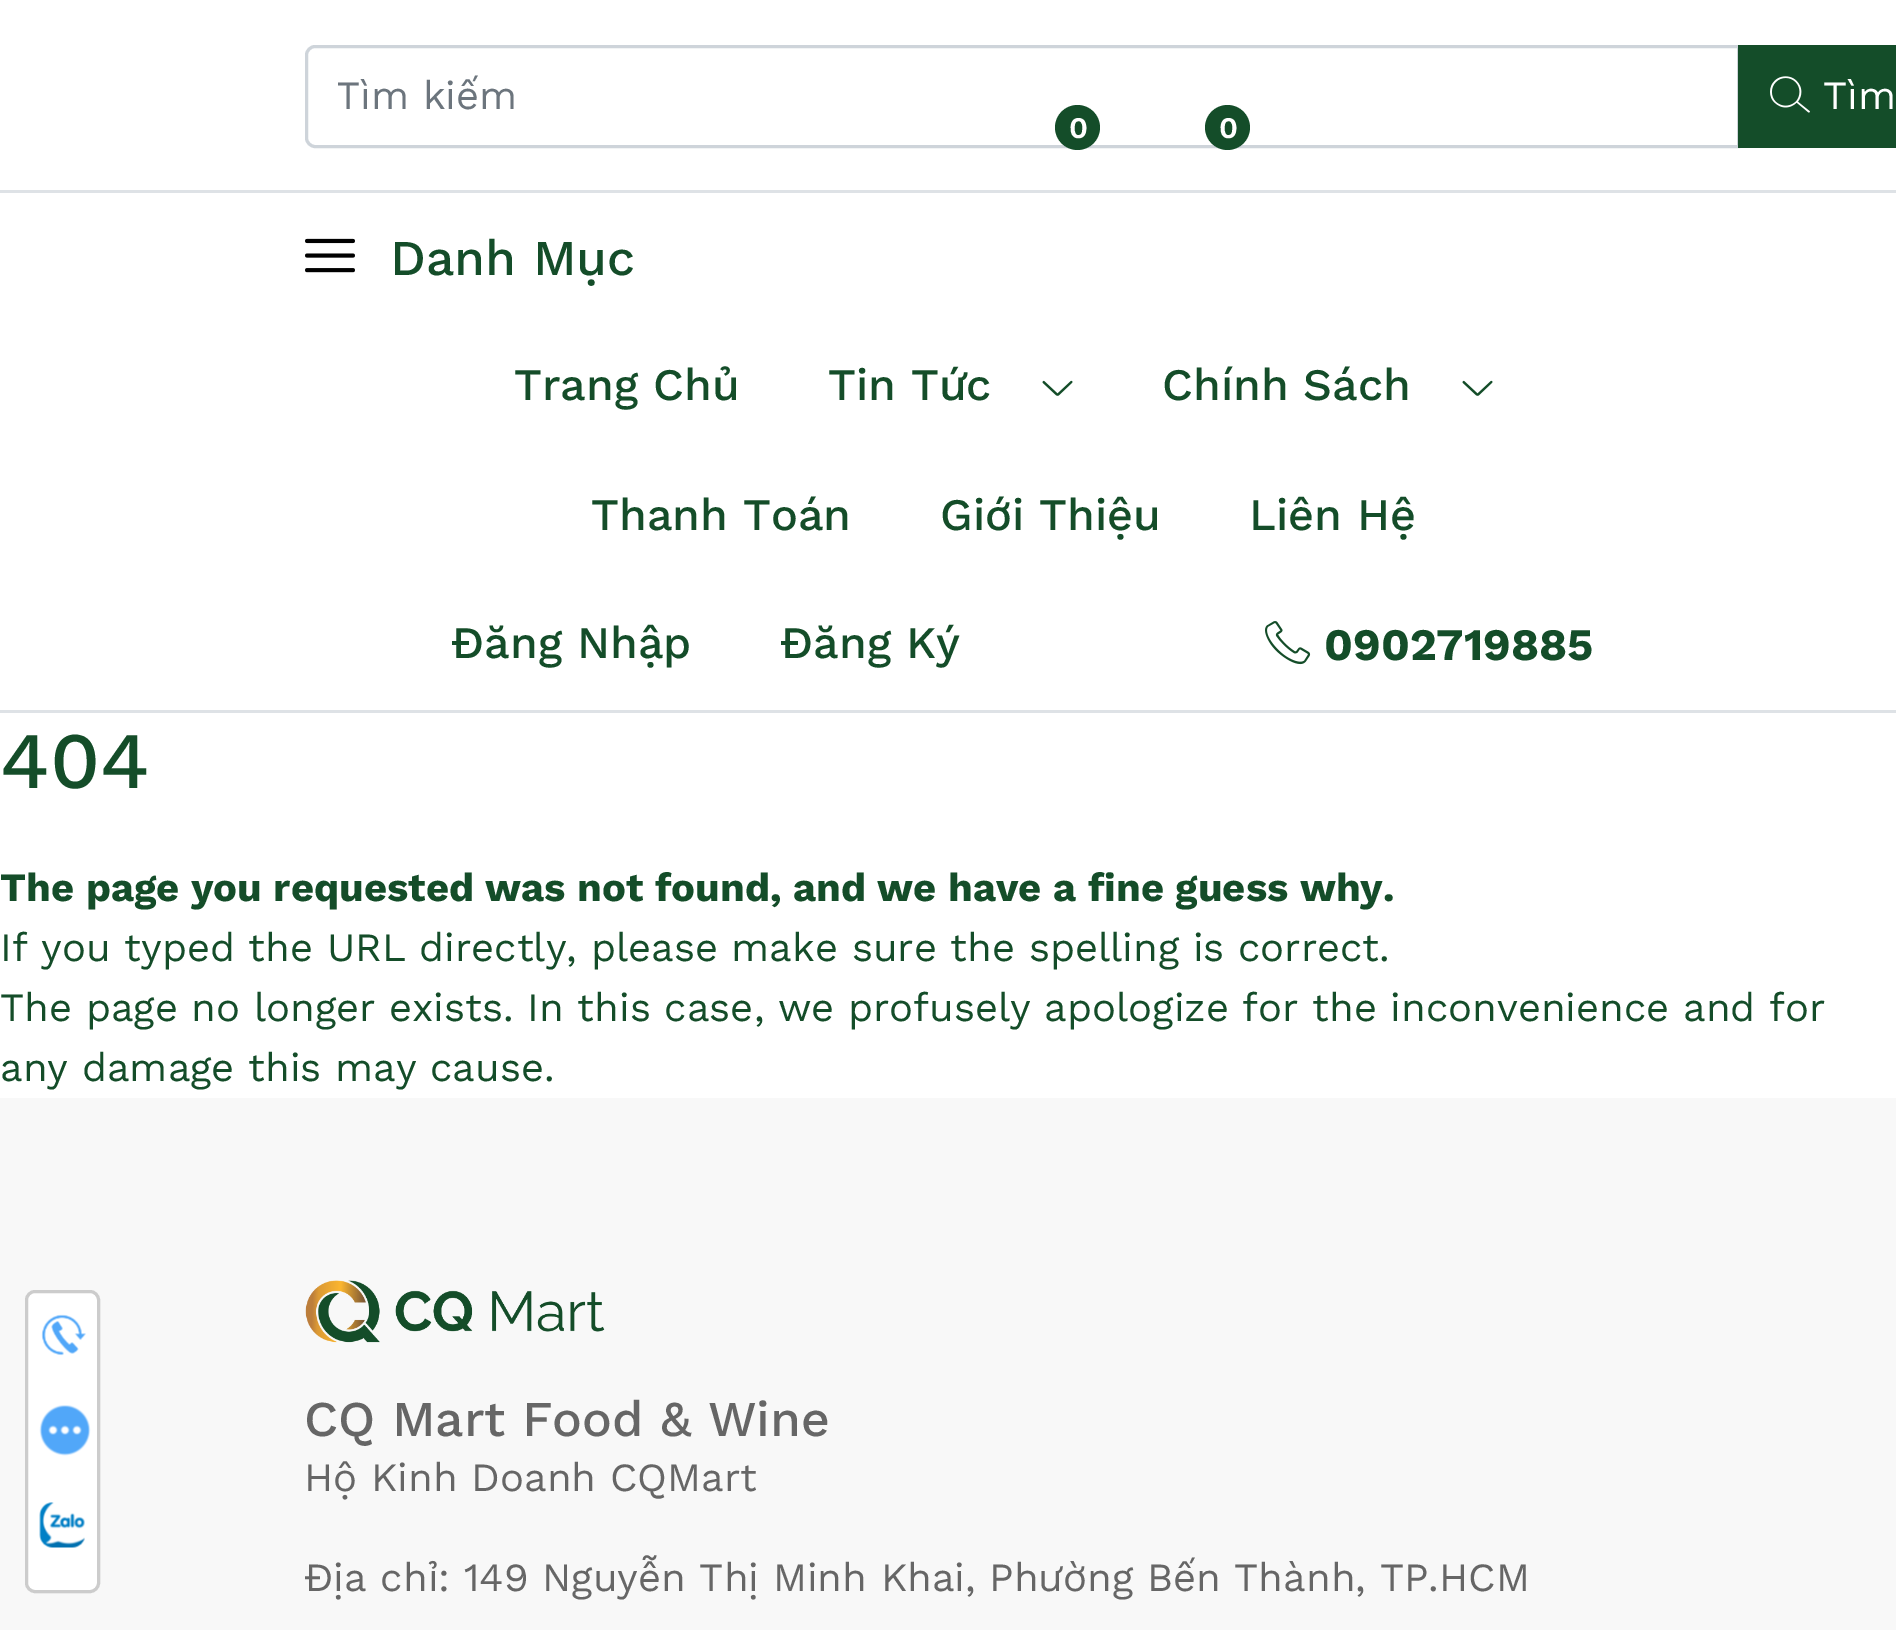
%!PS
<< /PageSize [1896 1630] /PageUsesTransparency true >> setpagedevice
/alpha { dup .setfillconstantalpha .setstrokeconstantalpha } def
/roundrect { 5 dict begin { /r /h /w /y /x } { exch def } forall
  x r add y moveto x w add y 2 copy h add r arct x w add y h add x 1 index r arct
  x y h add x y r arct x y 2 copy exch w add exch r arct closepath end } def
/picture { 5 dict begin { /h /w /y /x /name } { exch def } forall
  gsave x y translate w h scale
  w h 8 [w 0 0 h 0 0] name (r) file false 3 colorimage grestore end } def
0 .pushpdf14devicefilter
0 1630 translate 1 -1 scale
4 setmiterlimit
1 setgray
0 0 1896 1630 rectfill
0.808 0.831 0.855 setrgbcolor
3 setlinewidth
newpath 315 46.5 moveto 1738.5 46.5 lineto 1738.5 146.5 lineto 315 146.5 lineto 310.5 146.5 306.5 142.5 306.5 138 curveto 306.5 55 lineto 306.5 50.5 310.5 46.5 315 46.5 curveto closepath stroke
gsave
338 73 1370 47 rectclip
/WorkSans-Regular [40 0 0 -40 0 0] selectfont
0.424 0.459 0.49 setrgbcolor
336 109 moveto (Tìm kiếm) show
grestore
0.078 0.302 0.161 setrgbcolor
1738 45 158 103 rectfill
(img1.rgb) 1770 76 40 37 picture
/WorkSans-Regular [40 0 0 -40 0 0] selectfont
1 setgray
1823 109 moveto (Tìm) show
0.078 0.302 0.161 setrgbcolor
newpath 1077.5 127.5 22.5 0 360 arc closepath fill
/WorkSans-SemiBold [30 0 0 -30 0 0] selectfont
1 setgray
1069 138 moveto (0) show
0.078 0.302 0.161 setrgbcolor
newpath 1227.5 127.5 22.5 0 360 arc closepath fill
1 setgray
1219 138 moveto (0) show
0.871 0.886 0.902 setrgbcolor
0 190 1896 3 rectfill
0 710 1896 3 rectfill
(img2.rgb) 305 238 50 35 picture
/WorkSans-Medium [50 0 0 -50 0 0] selectfont
0.078 0.302 0.161 setrgbcolor
390 275 moveto (Danh Mục) show
/WorkSans-Medium [45 0 0 -45 0 0] selectfont
514 400 moveto (Trang Chủ) show
828 400 moveto (Tin Tức) show
(img3.rgb) 1042 380 31 16 picture
1162 400 moveto (Chính Sách) show
(img3.rgb) 1462 380 31 16 picture
591 530 moveto (Thanh Toán) show
940 530 moveto (Giới Thiệu) show
1249 530 moveto (Liên Hệ) show
451 658 moveto (Đăng Nhập) show
780 658 moveto (Đăng Ký) show
(img4.rgb) 1265 621 46 44 picture
/WorkSans-Bold [45 0 0 -45 0 0] selectfont
1324 660 moveto (0902719885) show
/WorkSans-Medium [80 0 0 -80 0 0] selectfont
0 788 moveto (404) show
/WorkSans-Bold [40 0 0 -40 0 0] selectfont
0 901 moveto (The page you requested was not found, and we have a fine guess why.) show
/WorkSans-Regular [40 0 0 -40 0 0] selectfont
0 961 moveto (If you typed the URL directly, please make sure the spelling is correct.) show
0 1021 moveto (The page no longer exists. In this case, we profusely apologize for the inconvenience and for) show
0 1081 moveto (any damage this may cause.) show
0.973 setgray
0 1098 1896 532 rectfill
1 setgray
25 1290 75 303 10 roundrect fill
0.2 alpha
0 setgray
26.5 1291.5 72 300 8.5 roundrect stroke
1 alpha
(img5.rgb) 41 1314 45 42 picture
(img6.rgb) 39 1405 52 51 picture
(img7.rgb) 39 1502 46 46 picture
(img8.rgb) 305 1280 300 63 picture
/WorkSans-Medium [50 0 0 -50 0 0] selectfont
0.4 setgray
304 1436 moveto (CQ Mart Food & Wine) show
/WorkSans-Regular [40 0 0 -40 0 0] selectfont
304 1491 moveto (Hộ Kinh Doanh CQMart) show
304 1591 moveto (Địa chỉ: 149 Nguyễn Thị Minh Khai, Phường Bến Thành, TP.HCM) show
.poppdf14devicefilter showpage
